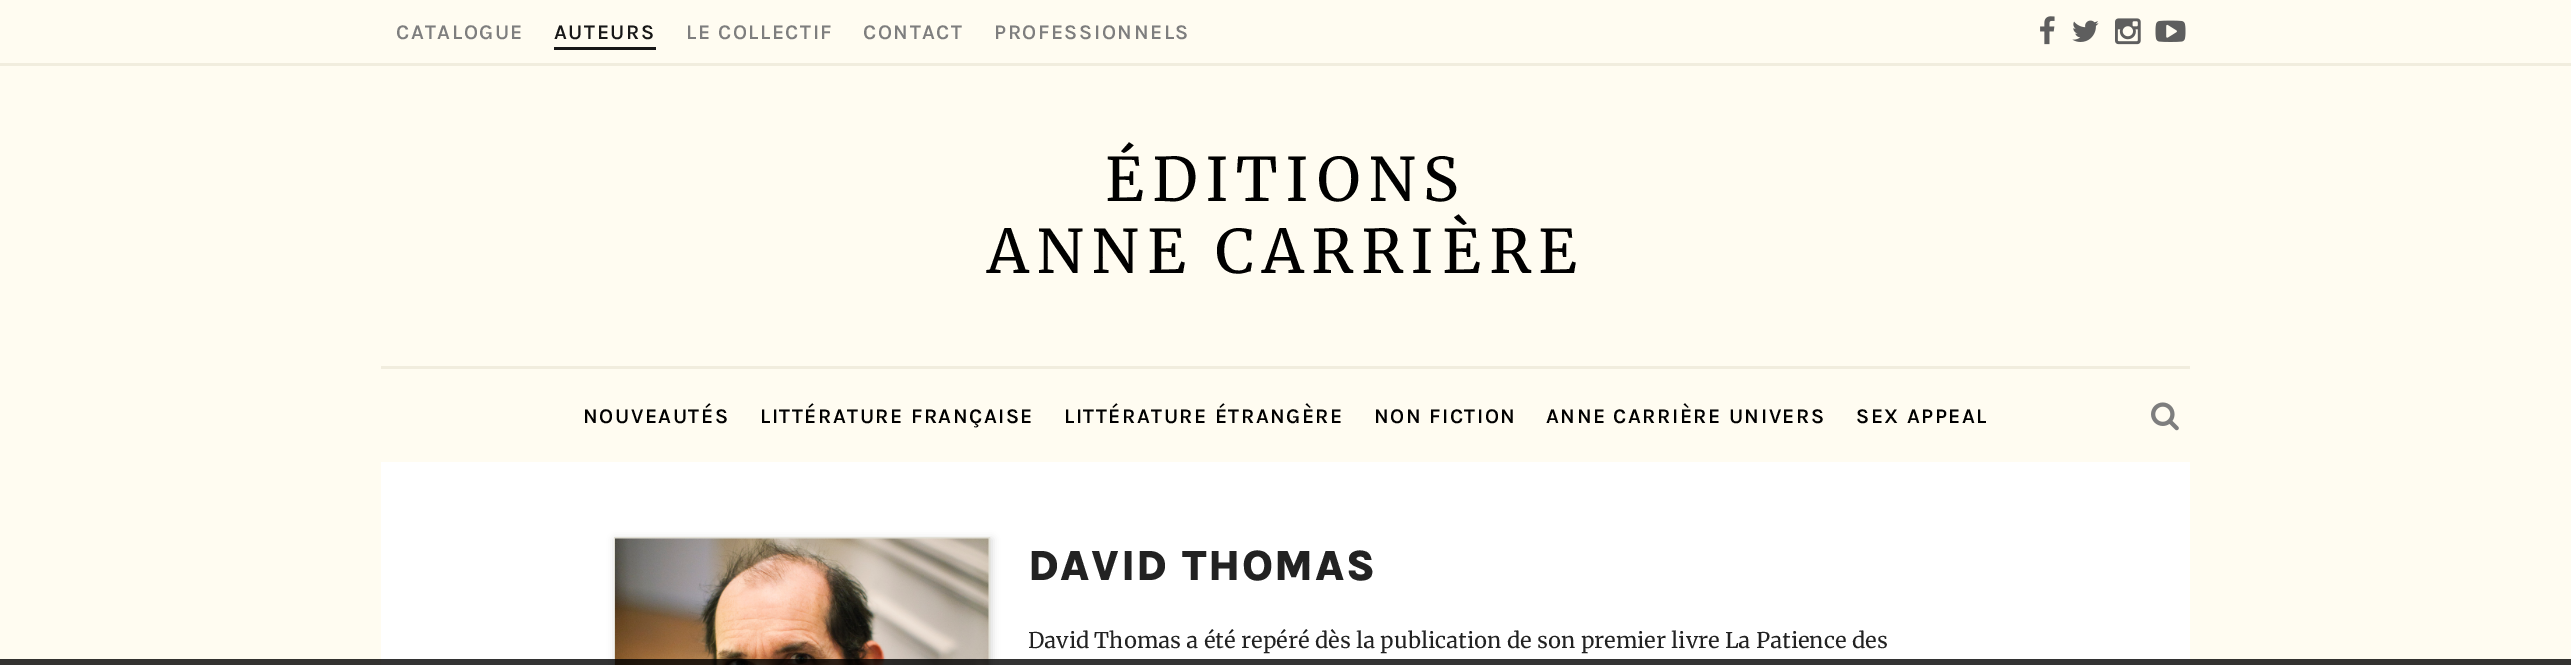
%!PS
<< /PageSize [2571 665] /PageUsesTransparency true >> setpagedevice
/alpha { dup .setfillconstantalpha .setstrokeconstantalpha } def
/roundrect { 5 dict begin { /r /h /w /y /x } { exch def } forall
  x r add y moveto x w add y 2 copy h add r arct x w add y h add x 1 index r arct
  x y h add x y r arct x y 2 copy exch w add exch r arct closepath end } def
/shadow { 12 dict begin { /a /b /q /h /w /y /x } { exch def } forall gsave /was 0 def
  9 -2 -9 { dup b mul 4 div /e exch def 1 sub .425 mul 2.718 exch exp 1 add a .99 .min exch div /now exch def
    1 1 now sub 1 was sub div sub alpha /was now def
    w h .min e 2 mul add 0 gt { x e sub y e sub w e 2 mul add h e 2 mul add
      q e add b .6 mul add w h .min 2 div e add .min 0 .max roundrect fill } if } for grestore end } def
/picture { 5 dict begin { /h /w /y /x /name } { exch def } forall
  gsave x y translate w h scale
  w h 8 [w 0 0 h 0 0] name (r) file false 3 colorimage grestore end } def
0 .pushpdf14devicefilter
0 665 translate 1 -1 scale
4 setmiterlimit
1 0.988 0.945 setrgbcolor
0 0 2571 665 rectfill
0.945 0.929 0.871 setrgbcolor
0 63 2571 3 rectfill
/Karla-SemiBold [21 0 0 -21 0 0] selectfont
0.494 setgray
396 39 moveto 1.5 0 (CATALOGUE) ashow
0.09 setgray
554 39 moveto 1.5 0 (AUTEURS) ashow
554 47 102 3 rectfill
0.494 setgray
686 39 moveto 1.5 0 (LE COLLECTIF) ashow
863 39 moveto 1.5 0 (CONTACT) ashow
994 39 moveto 1.5 0 (PROFESSIONNELS) ashow
(img1.rgb) 2040 16 15 29 picture
(img2.rgb) 2072 20 27 22 picture
(img3.rgb) 2115 18 26 27 picture
(img4.rgb) 2155 20 31 22 picture
/Merriweather-Regular [60 0 0 -60 0 0] selectfont
0 setgray
1105 201 moveto 7.5 0 (ÉDITIONS) ashow
987 273 moveto 7.5 0 (ANNE CARRIÈRE) ashow
0.945 0.929 0.871 setrgbcolor
381 366 1809 3 rectfill
/Karla-SemiBold [21 0 0 -21 0 0] selectfont
0 setgray
583 423 moveto 1.5 0 (NOUVEAUTÉS) ashow
760 423 moveto 1.5 0 (LITTÉRATURE FRANÇAISE) ashow
1064 423 moveto 1.5 0 (LITTÉRATURE ÉTRANGÈRE) ashow
1374 423 moveto 1.5 0 (NON FICTION) ashow
1546 423 moveto 1.5 0 (ANNE CARRIÈRE UNIVERS) ashow
1856 423 moveto 1.5 0 (SEX APPEAL) ashow
(img5.rgb) 2151 402 28 29 picture
1 setgray
381 462 1809 203 rectfill
0 setgray
615 539 377 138 0 4 0.15 shadow
0.886 0.878 0.839 setrgbcolor
2 setlinewidth
615 538 374 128 rectstroke
(img6.rgb) 615 538 374 127 picture
/Karla-ExtraBold [43.25 0 0 -43.25 0 0] selectfont
0.133 setgray
1028 580 moveto 1.5 0 (DAVID THOMAS) ashow
/Merriweather-Regular [21.6 0 0 -21.6 0 0] selectfont
1028 648 moveto (David Thomas a été repéré dès la publication de son premier livre La Patience des) show
0.8 alpha
0 setgray
0 659 2571 6 rectfill
.poppdf14devicefilter showpage
